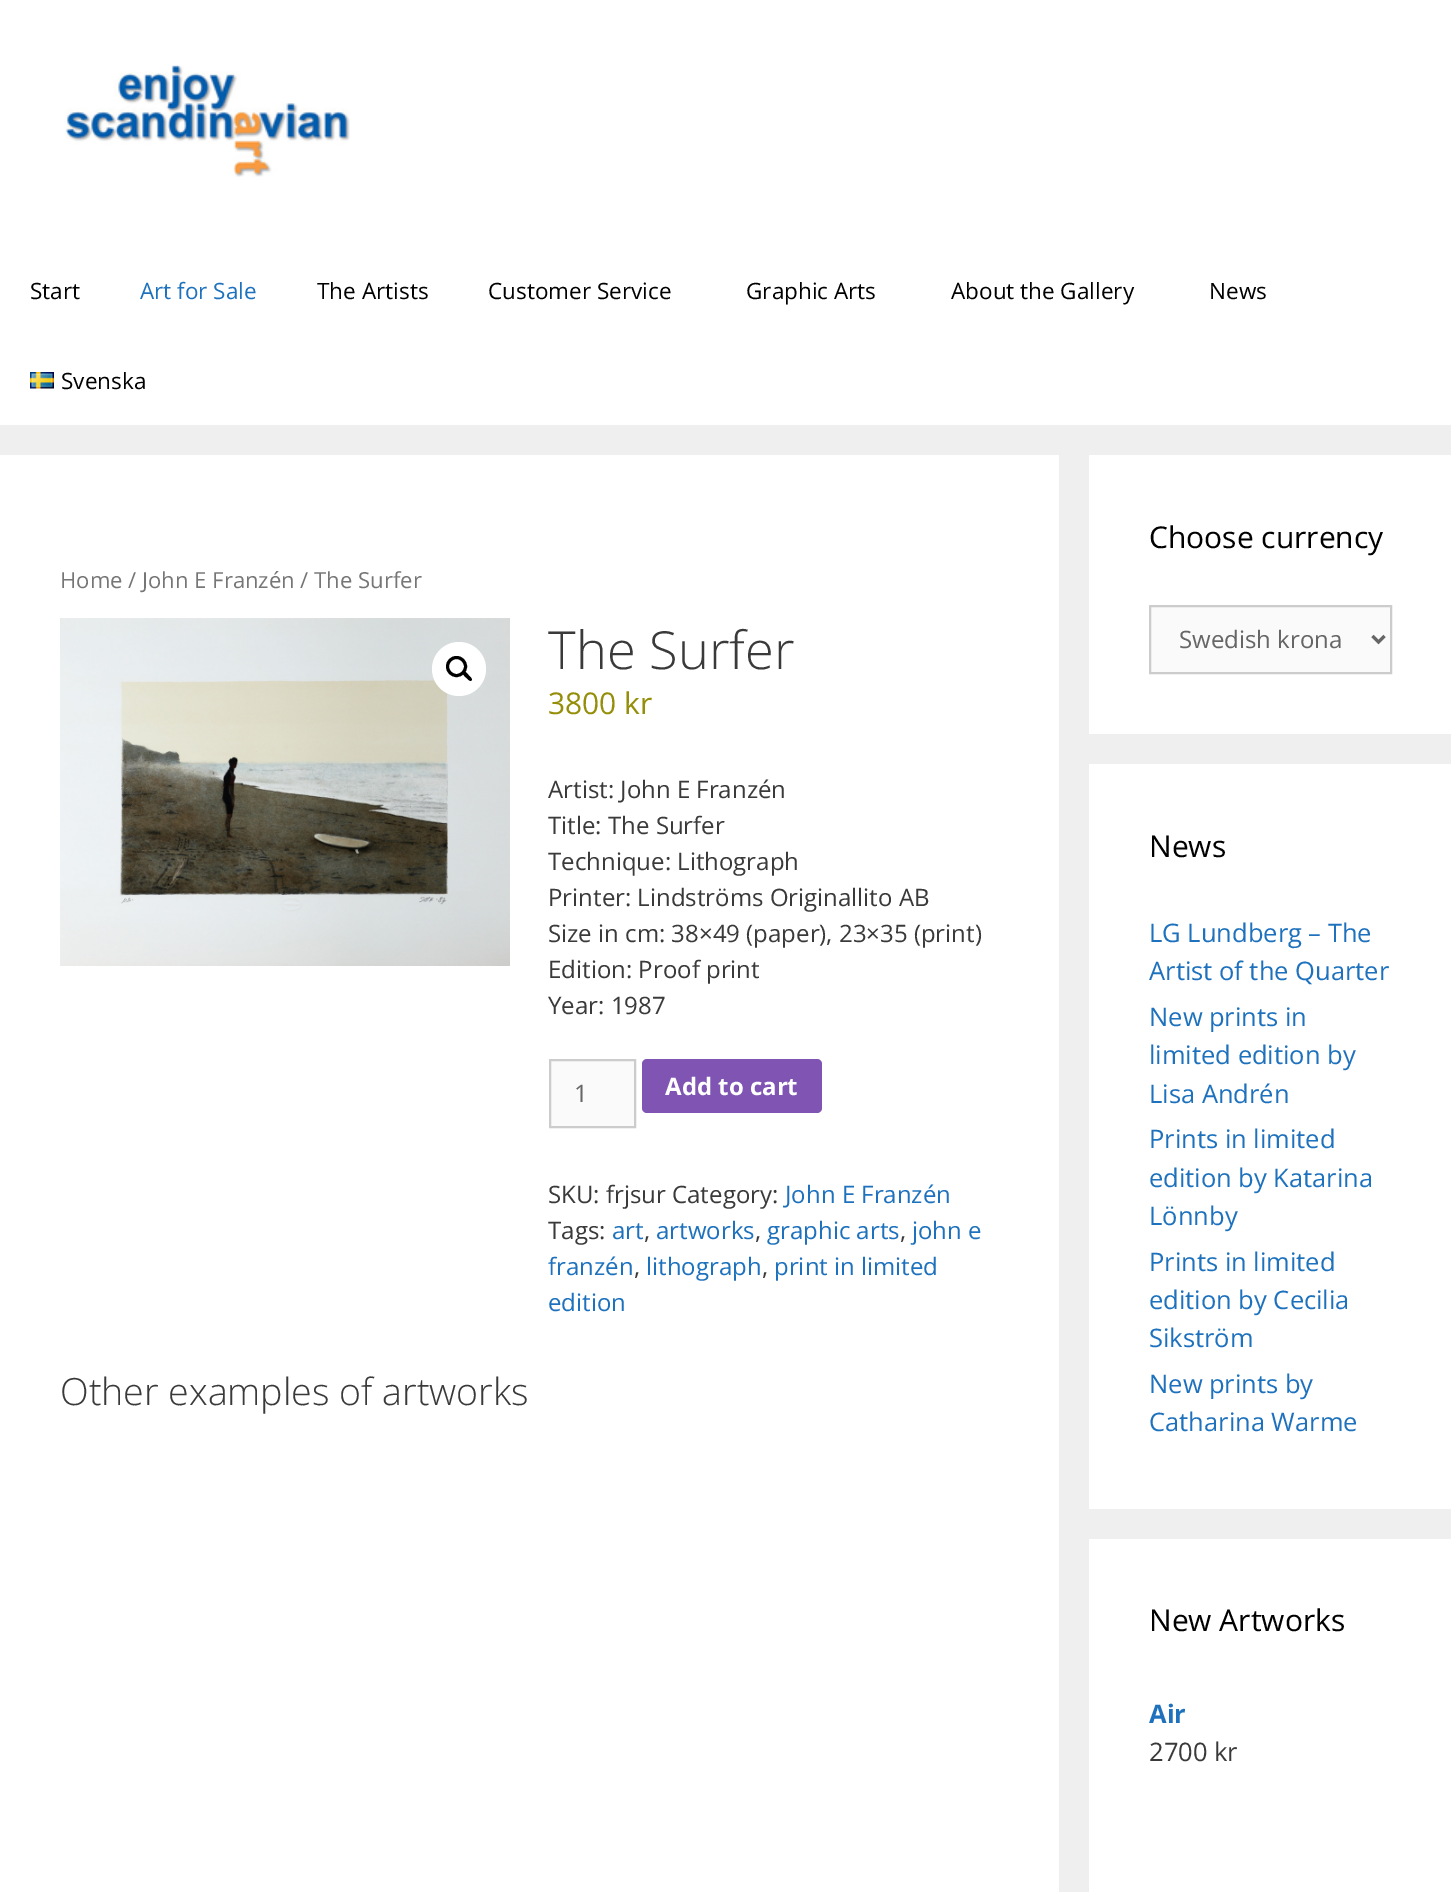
%!PS
<< /PageSize [1451 1892] >> setpagedevice
/roundrect { 5 dict begin { /r /h /w /y /x } { exch def } forall
  x r add y moveto x w add y 2 copy h add r arct x w add y h add x 1 index r arct
  x y h add x y r arct x y 2 copy exch w add exch r arct closepath end } def
/picture { 5 dict begin { /h /w /y /x /name } { exch def } forall
  gsave x y translate w h scale
  w h 8 [w 0 0 h 0 0] name (r) file false 3 colorimage grestore end } def
0 1892 translate 1 -1 scale
4 setmiterlimit
0.937 setgray
0 0 1451 1892 rectfill
1 setgray
0 0 1451 425 rectfill
(img1.rgb) 65 65 285 112 picture
/OpenSans-Regular [22.5 0 0 -22.5 0 0] selectfont
0 setgray
30 299 moveto (Start) show
0.118 0.447 0.741 setrgbcolor
140 299 moveto (Art for Sale) show
0 setgray
317 299 moveto (The Artists) show
488 299 moveto (Customer Service) show
746 299 moveto (Graphic Arts) show
951 299 moveto (About the Gallery) show
1209 299 moveto (News) show
(img2.rgb) 30 372 24 17 picture
61 389 moveto (Svenska) show
1 setgray
0 455 1059 1437 rectfill
/OpenSans-Regular [22.1 0 0 -22.1 0 0] selectfont
0.463 setgray
60 588 moveto (Home / John E Franzén / The Surfer) show
(img3.rgb) 60 618 450 348 picture
1 setgray
newpath 459 669 27 0 360 arc closepath fill
0 setgray
3 setlinewidth
newpath 456.5 666.5 9 0 360 arc closepath stroke
newpath 463 672 moveto 464.5 670 467.5 674 468.5 675 curveto 469 676 473 678.5 471.5 680.5 curveto 469.5 682 467 678 466 677.5 curveto 465 676.5 461.5 673.5 463 672 curveto closepath fill
/OpenSans-Light [52.5 0 0 -52.5 0 0] selectfont
0.227 setgray
548 669 moveto (The Surfer) show
/OpenSans-Regular [30 0 0 -30 0 0] selectfont
0.584 0.557 0.035 setrgbcolor
548 714 moveto (3800 kr) show
/OpenSans-Regular [24 0 0 -24 0 0] selectfont
0.227 setgray
548 798 moveto (Artist: John E Franzén) show
548 834 moveto (Title: The Surfer) show
548 870 moveto (Technique: Lithograph) show
548 906 moveto (Printer: Lindströms Originallito AB) show
548 942 moveto (Size in cm: 38×49 \(paper\), 23×35 \(print\)) show
548 978 moveto (Edition: Proof print) show
548 1014 moveto (Year: 1987) show
0.98 setgray
newpath 550 1060 moveto 635 1060 lineto 635 1127 lineto 550 1127 lineto closepath gsave fill grestore
0.8 setgray
2 setlinewidth
stroke
0.4 setgray
574 1102 moveto (1) show
0.498 0.329 0.702 setrgbcolor
642 1059 180 54 5 roundrect fill
/OpenSans-Bold [24 0 0 -24 0 0] selectfont
1 setgray
665 1095 moveto (Add to cart) show
/OpenSans-Regular [24 0 0 -24 0 0] selectfont
0.227 setgray
548 1203 moveto (SKU: frjsur Category:) show
0.118 0.447 0.741 setrgbcolor
785 1203 moveto (John E Franzén) show
0.227 setgray
548 1239 moveto (Tags:) show
0.118 0.447 0.741 setrgbcolor
612 1239 moveto (art) show
0.227 setgray
644 1239 moveto (,) show
0.118 0.447 0.741 setrgbcolor
656 1239 moveto (artworks) show
0.227 setgray
755 1239 moveto (,) show
0.118 0.447 0.741 setrgbcolor
767 1239 moveto (graphic arts) show
0.227 setgray
900 1239 moveto (,) show
0.118 0.447 0.741 setrgbcolor
912 1239 moveto (john e) show
548 1275 moveto (franzén) show
0.227 setgray
634 1275 moveto (,) show
0.118 0.447 0.741 setrgbcolor
646 1275 moveto (lithograph) show
0.227 setgray
762 1275 moveto (,) show
0.118 0.447 0.741 setrgbcolor
774 1275 moveto (print in limited) show
548 1311 moveto (edition) show
/OpenSans-Light [37.5 0 0 -37.5 0 0] selectfont
0.227 setgray
60 1405 moveto (Other examples of artworks) show
1 setgray
1089 455 362 279 rectfill
/OpenSans-Regular [30 0 0 -30 0 0] selectfont
0 setgray
1149 548 moveto (Choose currency) show
0.98 setgray
newpath 1150 606 moveto 1391 606 lineto 1391 673 lineto 1150 673 lineto closepath gsave fill grestore
0.8 setgray
stroke
0.4 setgray
3 setlinewidth
newpath 1372.5 636 moveto 1378.5 642 lineto 1384.5 636 lineto stroke
/OpenSans-Regular [24 0 0 -24 0 0] selectfont
1179 648 moveto (Swedish krona) show
1 setgray
1089 764 362 745 rectfill
/OpenSans-Regular [30 0 0 -30 0 0] selectfont
0 setgray
1149 857 moveto (News) show
/OpenSans-Regular [25.5 0 0 -25.5 0 0] selectfont
0.118 0.447 0.741 setrgbcolor
1149 942 moveto (LG Lundberg – The) show
1149 980 moveto (Artist of the Quarter) show
1149 1026 moveto (New prints in) show
1149 1064 moveto (limited edition by) show
1149 1103 moveto (Lisa Andrén) show
1149 1148 moveto (Prints in limited) show
1149 1187 moveto (edition by Katarina) show
1149 1225 moveto (Lönnby) show
1149 1271 moveto (Prints in limited) show
1149 1309 moveto (edition by Cecilia) show
1149 1347 moveto (Sikström) show
1149 1393 moveto (New prints by) show
1149 1431 moveto (Catharina Warme) show
1 setgray
1089 1539 362 353 rectfill
/OpenSans-Regular [30 0 0 -30 0 0] selectfont
0 setgray
1149 1631 moveto (New Artworks) show
/OpenSans-Bold [25.5 0 0 -25.5 0 0] selectfont
0.118 0.447 0.741 setrgbcolor
1149 1723 moveto (Air) show
/OpenSans-Regular [25.5 0 0 -25.5 0 0] selectfont
0.227 setgray
1149 1761 moveto (2700 kr) show
showpage
